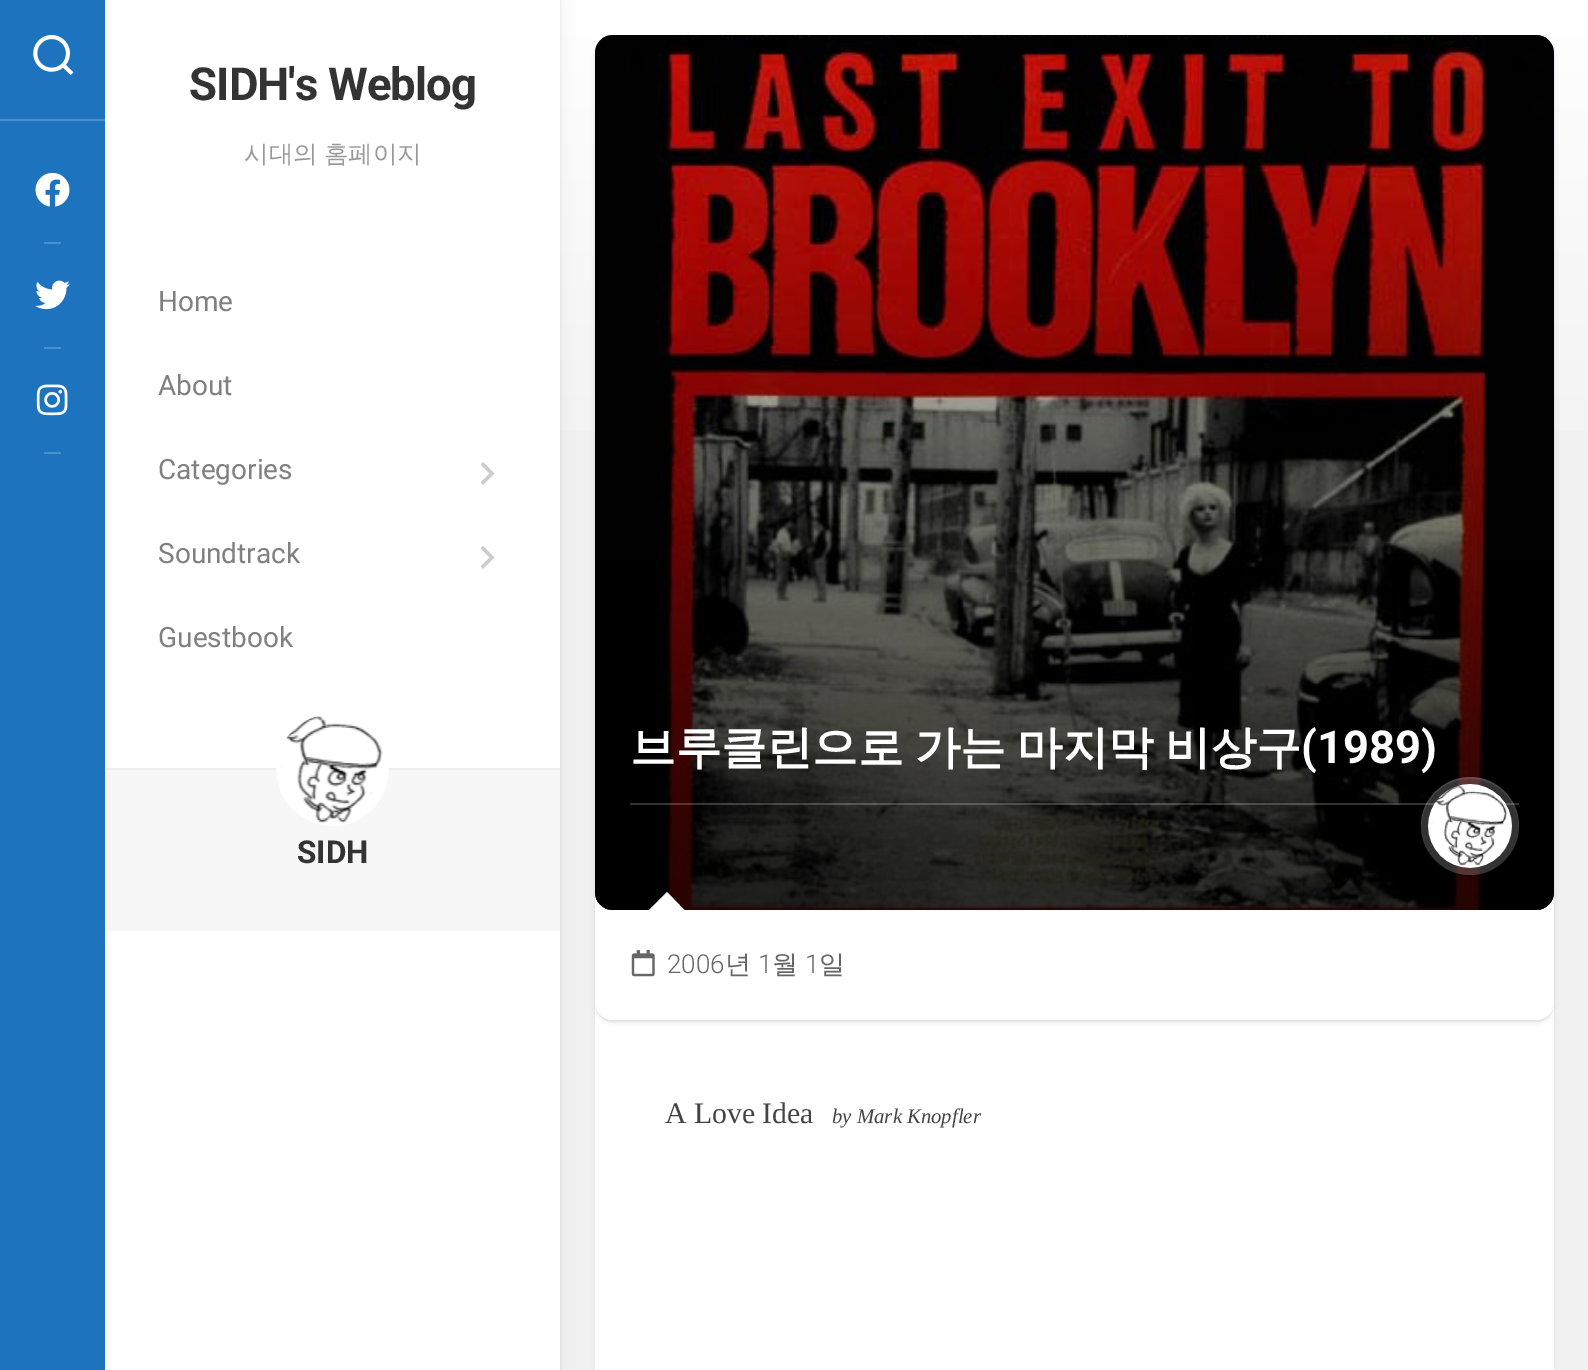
%!PS
<< /PageSize [1588 1370] /PageUsesTransparency true >> setpagedevice
/alpha { dup .setfillconstantalpha .setstrokeconstantalpha } def
/roundrect { 5 dict begin { /r /h /w /y /x } { exch def } forall
  x r add y moveto x w add y 2 copy h add r arct x w add y h add x 1 index r arct
  x y h add x y r arct x y 2 copy exch w add exch r arct closepath end } def
/shadow { 12 dict begin { /a /b /q /h /w /y /x } { exch def } forall gsave /was 0 def
  9 -2 -9 { dup b mul 4 div /e exch def 1 sub .425 mul 2.718 exch exp 1 add a .99 .min exch div /now exch def
    1 1 now sub 1 was sub div sub alpha /was now def
    w h .min e 2 mul add 0 gt { x e sub y e sub w e 2 mul add h e 2 mul add
      q e add b .6 mul add w h .min 2 div e add .min 0 .max roundrect fill } if } for grestore end } def
/picture { 5 dict begin { /h /w /y /x /name } { exch def } forall
  gsave x y translate w h scale
  w h 8 [w 0 0 h 0 0] name (r) file false 3 colorimage grestore end } def
0 .pushpdf14devicefilter
0 1370 translate 1 -1 scale
4 setmiterlimit
0.945 setgray
0 0 1588 1370 rectfill
gsave newpath 560 0 moveto 1588 0 lineto 1588 431 lineto 560 431 lineto closepath clip newpath
<< /ShadingType 2 /ColorSpace /DeviceRGB /Coords [1075 0 1075 525] /Extend [true true] /Function << /FunctionType 2 /Domain [0 1] /C0 [1 1 1] /C1 [0.945 0.945 0.945] /N 1 >> >> shfill grestore
0 setgray
105 0 455 1370 0 1 0.1 shadow
105 0 455 1370 0 9 0.05 shadow
1 setgray
105 0 455 1370 rectfill
0.118 0.451 0.745 setrgbcolor
0 0 105 1370 rectfill
0.294 0.561 0.796 setrgbcolor
0 119 105 2 rectfill
(img1.rgb) 33 35 41 40 picture
(img2.rgb) 35 172 35 35 picture
44 242 17 2 rectfill
(img3.rgb) 35 280 35 30 picture
44 347 17 2 rectfill
(img4.rgb) 36 384 32 32 picture
44 452 17 2 rectfill
/Roboto-Bold [45.5 0 0 -45.5 0 0] selectfont
0.2 setgray
189 100 moveto -0.9 0 (SIDH′s Weblog) ashow
/WenQuanYiZenHei-Medium [24.5 0 0 -24.5 0 0] selectfont
0.6 setgray
244 162 moveto -1 0 32 (시대의 홈페이지) widthshow
/Roboto-Regular [28 0 0 -28 0 0] selectfont
0.502 setgray
158 311 moveto (Home) show
158 395 moveto (About) show
158 479 moveto (Categories) show
0.8 setgray
newpath 489.5 473.5 moveto 481 465 lineto 481 464 lineto 483 462 lineto 494.5 473.5 lineto 483 485 lineto 481 483 lineto 481 482 lineto closepath fill
0.502 setgray
158 563 moveto (Soundtrack) show
0.8 setgray
newpath 489.5 557.5 moveto 481 549 lineto 481 548 lineto 483 546 lineto 494.5 557.5 lineto 483 569 lineto 481 567 lineto 481 566 lineto closepath fill
0.502 setgray
158 647 moveto (Guestbook) show
0.969 setgray
105 770 455 161 rectfill
0.933 setgray
105 768 455 2 rectfill
(img5.rgb) 276 716 113 110 picture
/Roboto-Bold [31.5 0 0 -31.5 0 0] selectfont
0.2 setgray
297 863 moveto (SIDH) show
0 setgray
595 39 959 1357 18 2.5 0.06 shadow
1 setgray
595 35 959 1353 18 roundrect fill
0 setgray
595 39 959 985 18 2.5 0.06 shadow
0.06 alpha
newpath 595 1003 moveto 595 1013 602 1022 613 1022 curveto 1536 1022 lineto 1547 1022 1554 1013 1554 1003 curveto 1554 1012 1546 1020 1536 1020 curveto 612 1020 lineto 603 1020 595 1012 595 1003 curveto closepath fill
1 alpha
1 setgray
595 35 959 985 18 roundrect fill
(img6.rgb) 595 35 959 875 picture
(img7.rgb) 595 81 959 829 picture
/WenQuanYiZenHei-Bold [45.5 0 0 -45.5 0 0] selectfont
630 763 moveto -2 0 32 (브루클린으로 가는 마지막 비상구) widthshow
/Roboto-Bold [45.5 0 0 -45.5 0 0] selectfont
1301 763 moveto (\(1989\)) show
0.2 alpha
630 803 889 2 rectfill
0 setgray
newpath 1519 827 moveto 1518 854 1497 875 1470 875 curveto 1443 875 1422 854 1421 827 curveto 1420 875 1484 896 1511 855 curveto 1516 847 1519 837 1519 827 curveto closepath fill
1 setgray
newpath 1470 826 49 0 360 arc closepath fill
0.1 alpha
newpath 1470 779 moveto 1497 779 1518 800 1519 827 curveto 1519 817 1516 807 1511 799 curveto 1484 758 1420 779 1421 827 curveto 1422 800 1443 779 1470 779 curveto closepath fill
1 alpha
(img8.rgb) 1428 784 84 84 picture
newpath 693 919 moveto 640 919 lineto 667 892 lineto closepath fill
(img9.rgb) 631 950 24 27 picture
/Roboto-Light [26 0 0 -26 0 0] selectfont
0.4 setgray
667 973 moveto (2006) show
/WenQuanYiZenHei-Medium [26 0 0 -26 0 0] selectfont
725 973 moveto (년) show
/Roboto-Light [26 0 0 -26 0 0] selectfont
758 973 moveto (1) show
/WenQuanYiZenHei-Medium [26 0 0 -26 0 0] selectfont
772 973 moveto (월) show
/Roboto-Light [26 0 0 -26 0 0] selectfont
805 973 moveto (1) show
/WenQuanYiZenHei-Medium [26 0 0 -26 0 0] selectfont
819 973 moveto (일) show
/LiberationSerif-Regular [29.75 0 0 -29.75 0 0] selectfont
0.267 setgray
665 1123 moveto (A Love Idea) show
/LiberationSerif-Italic [20.75 0 0 -20.75 0 0] selectfont
832 1123 moveto (by Mark Knopfler) show
.poppdf14devicefilter showpage
